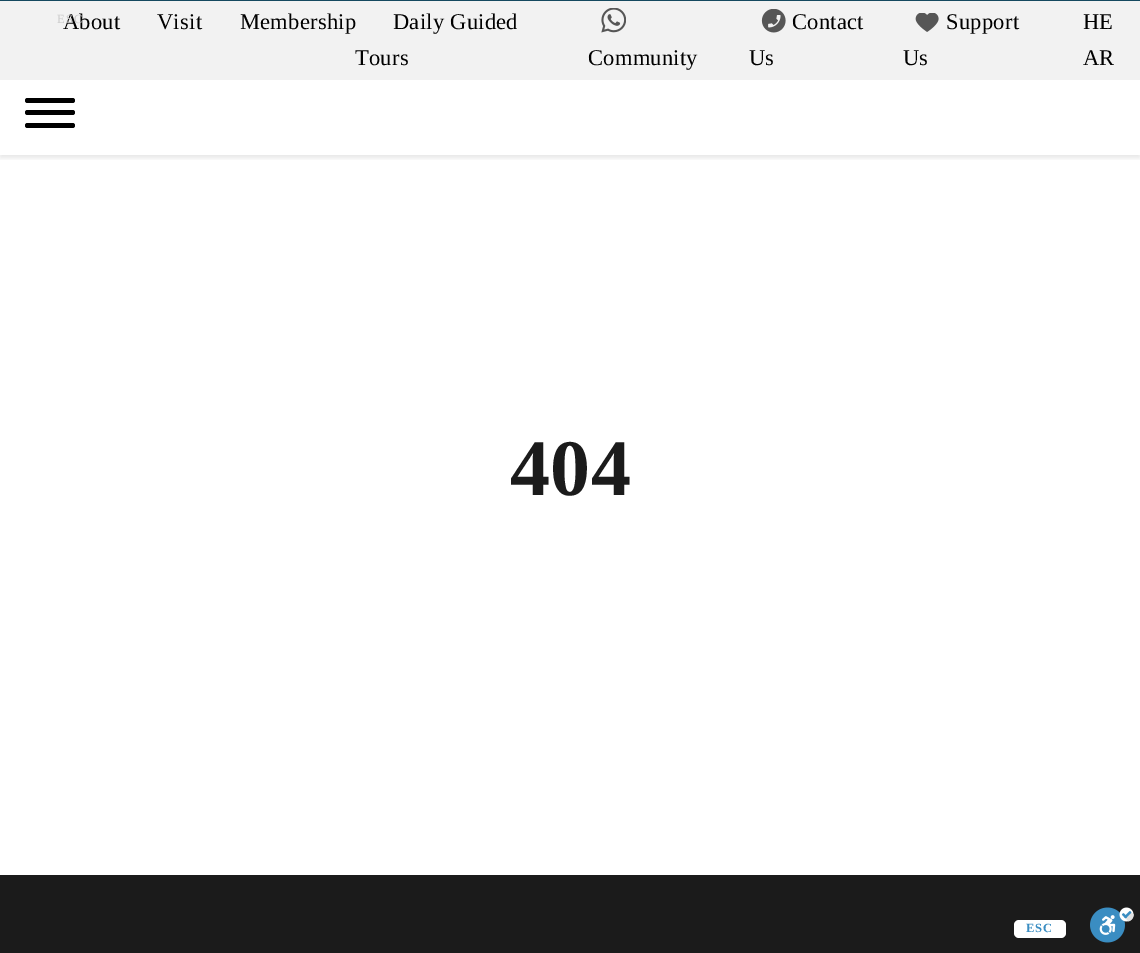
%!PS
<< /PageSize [1140 953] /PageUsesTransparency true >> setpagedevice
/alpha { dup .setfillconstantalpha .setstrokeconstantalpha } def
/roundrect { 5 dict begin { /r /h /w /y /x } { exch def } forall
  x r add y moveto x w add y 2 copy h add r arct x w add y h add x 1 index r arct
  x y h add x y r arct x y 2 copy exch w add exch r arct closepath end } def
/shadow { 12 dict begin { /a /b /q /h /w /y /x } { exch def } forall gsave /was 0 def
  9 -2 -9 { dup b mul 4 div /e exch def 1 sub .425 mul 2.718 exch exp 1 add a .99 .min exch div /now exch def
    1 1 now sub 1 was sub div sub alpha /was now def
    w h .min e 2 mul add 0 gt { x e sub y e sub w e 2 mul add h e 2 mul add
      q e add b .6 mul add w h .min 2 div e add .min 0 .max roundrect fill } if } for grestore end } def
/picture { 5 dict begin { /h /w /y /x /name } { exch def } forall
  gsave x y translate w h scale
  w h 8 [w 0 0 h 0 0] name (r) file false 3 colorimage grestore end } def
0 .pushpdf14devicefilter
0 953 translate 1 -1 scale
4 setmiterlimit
1 setgray
0 0 1140 953 rectfill
gsave
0 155 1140 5 rectclip
0 setgray
0 3 1140 155 0 2.5 0.09 shadow
grestore
0.949 setgray
0 1 1140 79 rectfill
/LiberationSerif-Regular [22.5 0 0 -22.5 0 0] selectfont
0 setgray
63 29 moveto 0.25 0 (About) ashow
157 29 moveto 0.25 0 (Visit) ashow
240 29 moveto 0.25 0 (Membership) ashow
393 29 moveto 0.25 0 (Daily Guided) ashow
355 65 moveto 0.25 0 (Tours) ashow
(img1.rgb) 601 8 25 25 picture
588 65 moveto 0.25 0 (Community) ashow
(img2.rgb) 761 9 25 24 picture
792 29 moveto 0.25 0 (Contact) ashow
749 65 moveto 0.25 0 (Us) ashow
(img3.rgb) 915 13 24 19 picture
946 29 moveto 0.25 0 (Support) ashow
903 65 moveto 0.25 0 (Us) ashow
1083 29 moveto 0.25 0 (HE) ashow
1083 65 moveto 0.25 0 (AR) ashow
25 98 50 5 2.5 roundrect fill
25 110 50 5 2.5 roundrect fill
25 123 50 5 2.5 roundrect fill
/LiberationSerif-Bold [80 0 0 -80 0 0] selectfont
0.106 setgray
510 495 moveto 0.25 0 (404) ashow
0 875 1140 78 rectfill
0.082 0.286 0.373 setrgbcolor
0 0 1140 1 rectfill
/LiberationSerif-Regular [12.5 0 0 -12.5 0 0] selectfont
0.784 setgray
57 23 moveto 1 0 (ESC) ashow
1 setgray
1014 920 52 18 5 roundrect fill
/LiberationSerif-Bold [12.5 0 0 -12.5 0 0] selectfont
0.227 0.553 0.761 setrgbcolor
1026 932 moveto 1 0 (ESC) ashow
(img4.rgb) 1090 907 44 36 picture
.poppdf14devicefilter showpage
